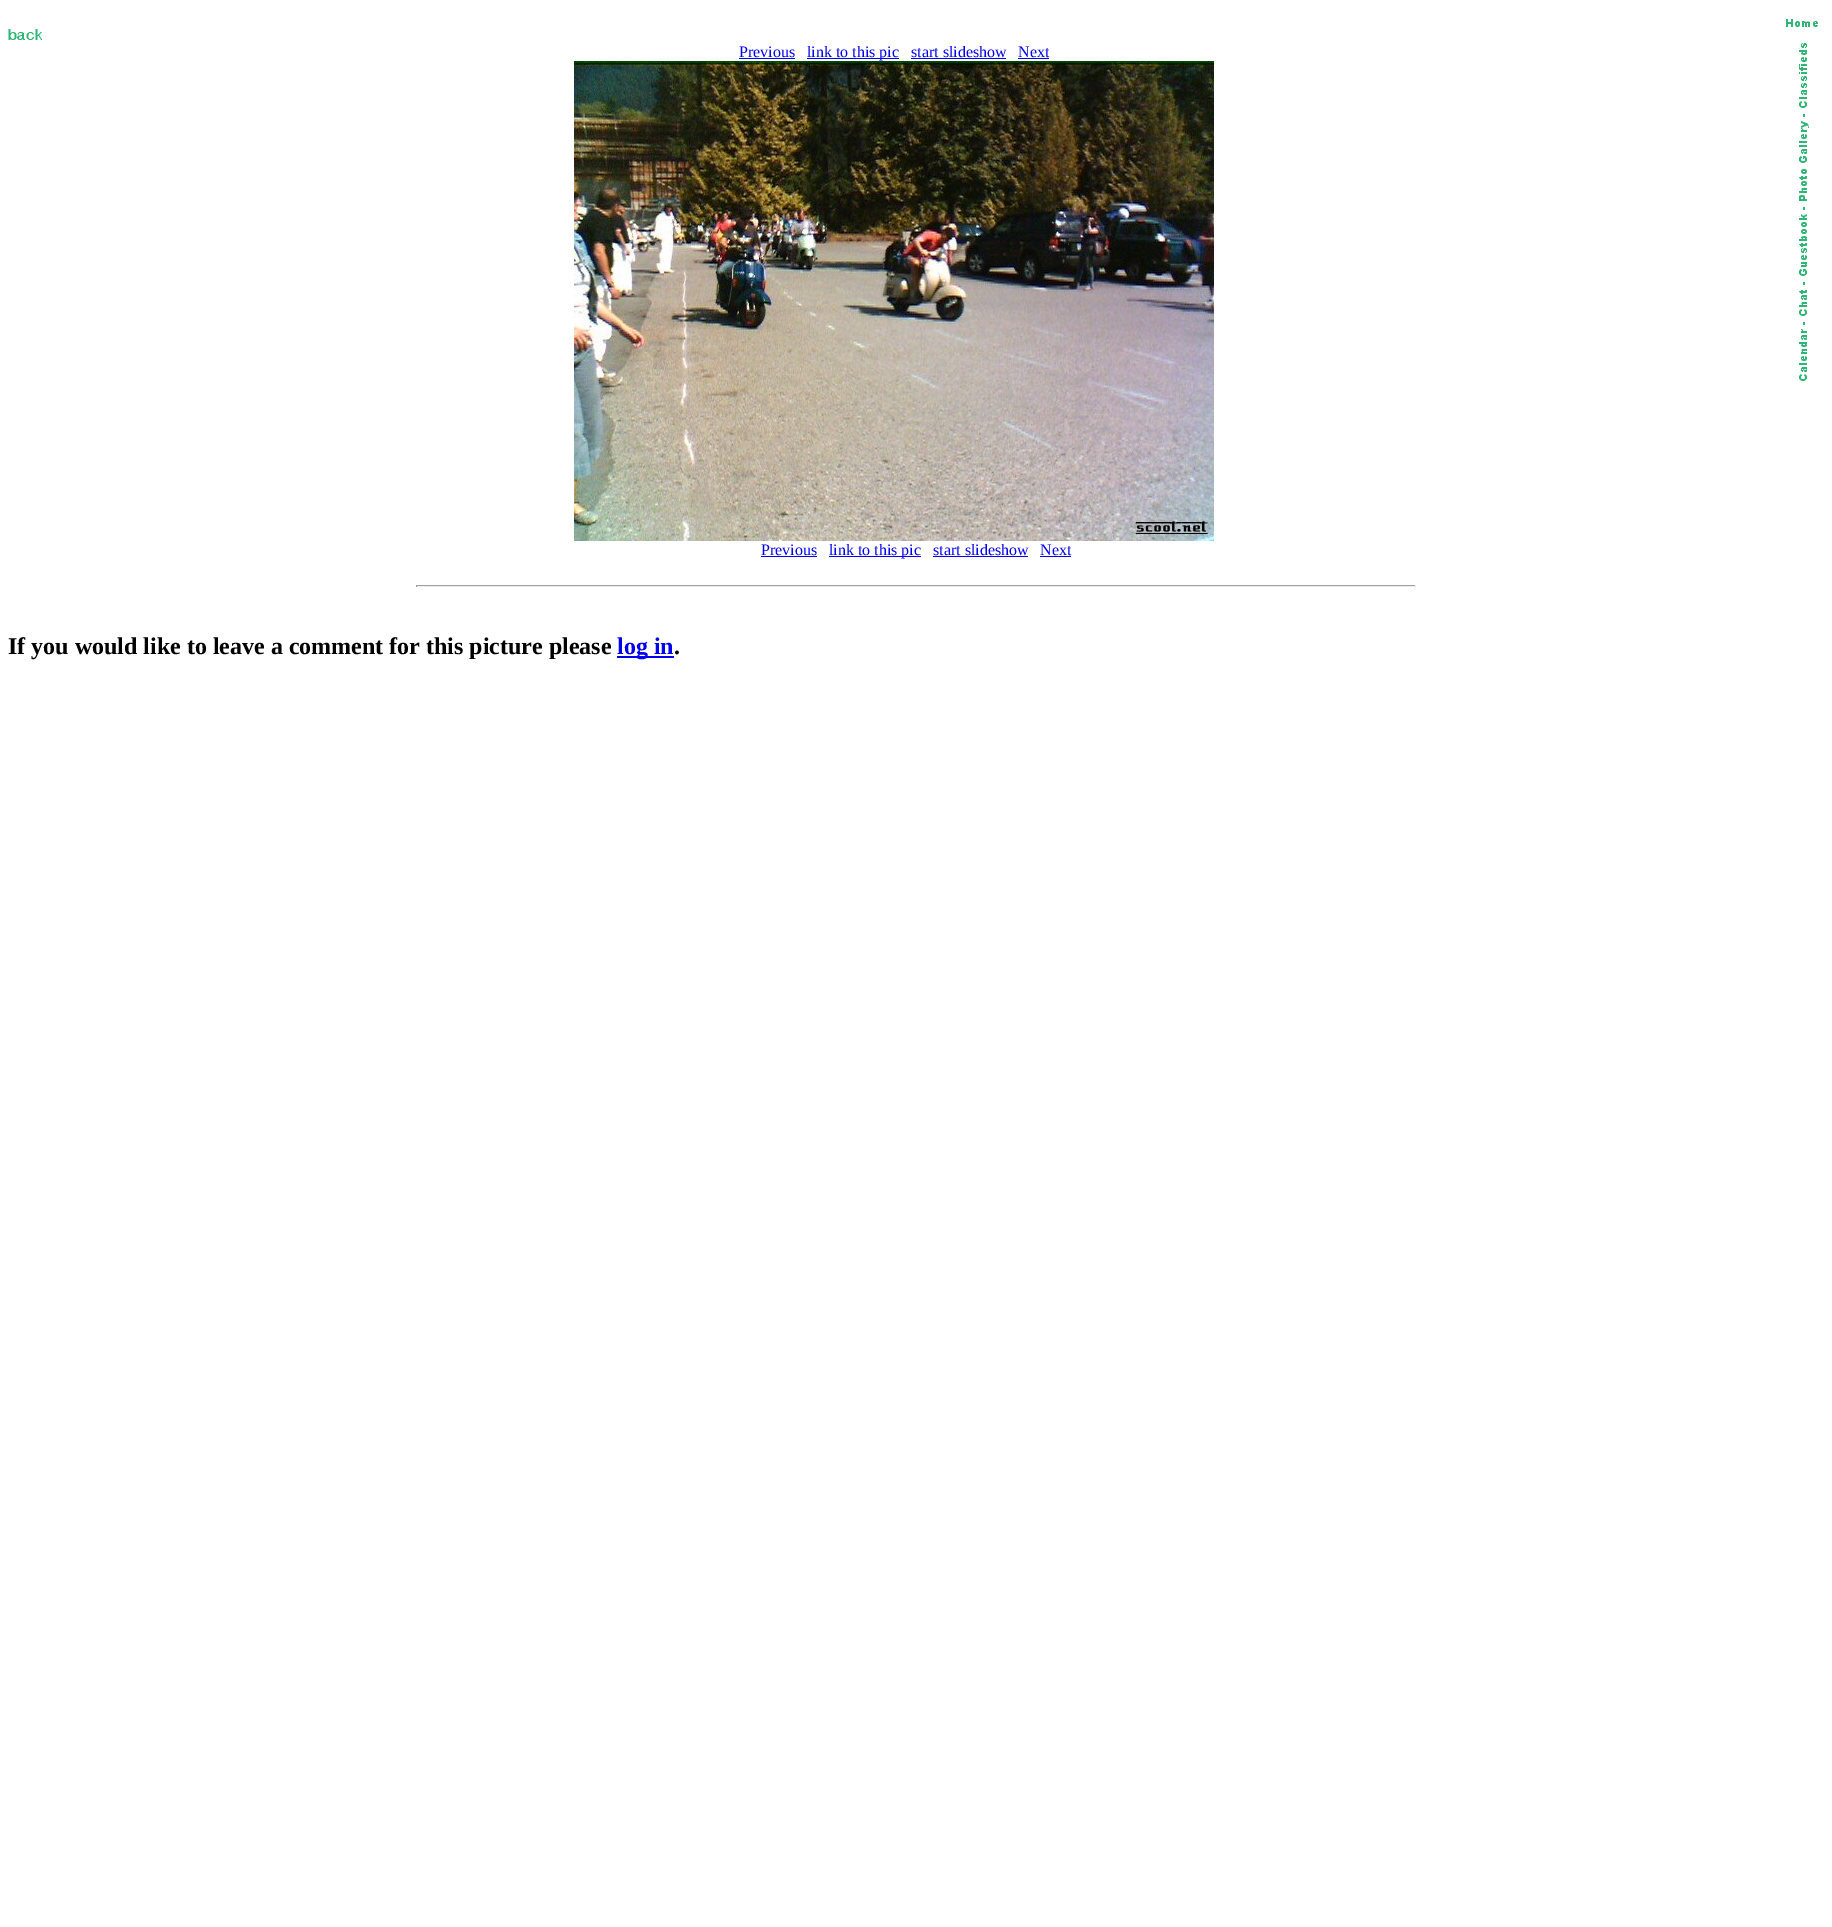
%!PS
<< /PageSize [1832 1927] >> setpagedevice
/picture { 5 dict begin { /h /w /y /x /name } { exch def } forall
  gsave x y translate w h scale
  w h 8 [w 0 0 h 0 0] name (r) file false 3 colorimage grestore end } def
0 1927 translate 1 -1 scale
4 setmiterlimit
1 setgray
0 0 1832 1927 rectfill
(img1.rgb) 8 29 34 11 picture
(img2.rgb) 1786 19 32 8 picture
(img3.rgb) 1799 43 10 338 picture
/LiberationSerif-Regular [16 0 0 -16 0 0] selectfont
0 0 0.933 setrgbcolor
739 57 moveto (Previous) show
739 58 56 1 rectfill
807 58 92 1 rectfill
807 57 moveto (link to this pic) show
911 57 moveto (start slideshow) show
911 58 95 1 rectfill
1018 57 moveto (Next) show
1018 58 31 1 rectfill
(img4.rgb) 574 61 640 480 picture
761 555 moveto (Previous) show
761 556 56 1 rectfill
829 556 92 1 rectfill
829 555 moveto (link to this pic) show
933 555 moveto (start slideshow) show
933 556 95 1 rectfill
1040 555 moveto (Next) show
1040 556 31 1 rectfill
0.624 setgray
416 585 1000 1 rectfill
0.933 setgray
1415 585 1 2 rectfill
416 586 1000 1 rectfill
0.624 setgray
416 585 1 2 rectfill
/LiberationSerif-Bold [24 0 0 -24 0 0] selectfont
0 setgray
8 654 moveto (If you would like to leave a comment for this picture please) show
0 0 0.933 setrgbcolor
617 656 57 2 rectfill
617 654 moveto (log in) show
0 setgray
674 654 moveto (.) show
showpage
